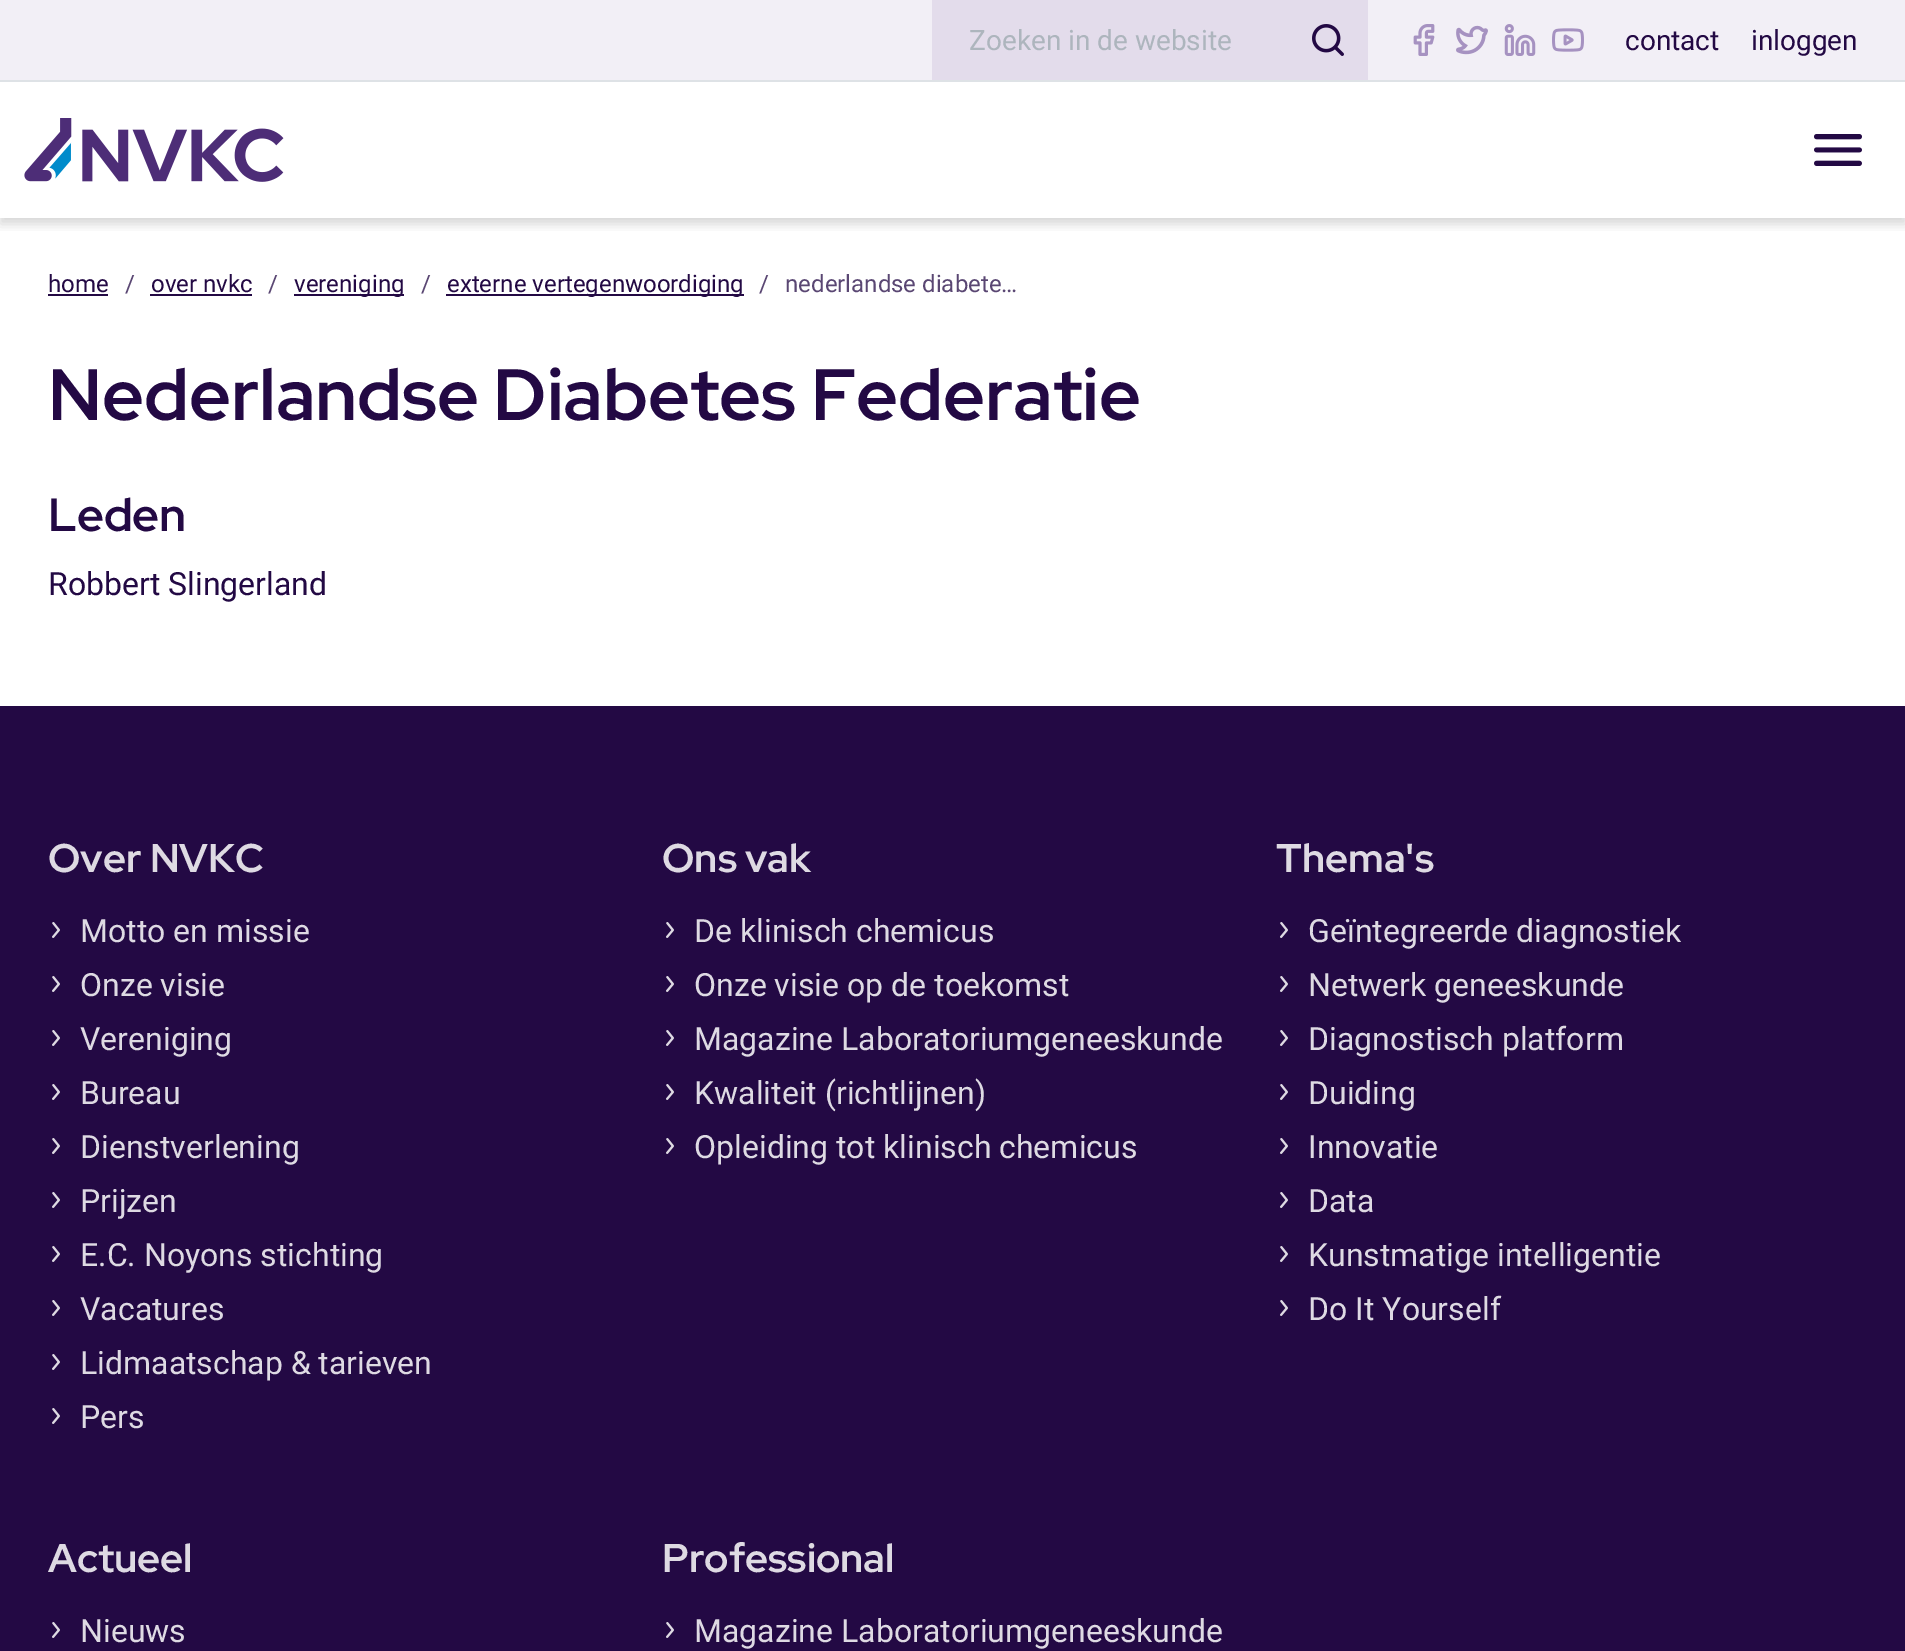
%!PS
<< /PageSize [1905 1651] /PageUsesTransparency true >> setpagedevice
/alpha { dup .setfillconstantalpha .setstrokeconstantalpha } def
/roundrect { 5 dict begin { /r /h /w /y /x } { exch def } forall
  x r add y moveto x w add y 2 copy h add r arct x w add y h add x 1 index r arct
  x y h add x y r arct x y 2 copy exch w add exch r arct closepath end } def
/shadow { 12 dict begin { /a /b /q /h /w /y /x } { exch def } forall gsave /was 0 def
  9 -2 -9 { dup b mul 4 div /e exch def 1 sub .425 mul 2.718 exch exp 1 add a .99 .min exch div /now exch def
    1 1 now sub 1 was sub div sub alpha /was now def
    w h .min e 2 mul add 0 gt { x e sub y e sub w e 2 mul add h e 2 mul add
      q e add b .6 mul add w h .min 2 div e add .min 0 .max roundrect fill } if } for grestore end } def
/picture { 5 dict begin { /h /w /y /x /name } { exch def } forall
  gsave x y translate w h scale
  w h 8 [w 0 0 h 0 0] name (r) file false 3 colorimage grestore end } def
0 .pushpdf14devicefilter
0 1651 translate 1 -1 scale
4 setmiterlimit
1 setgray
0 0 1905 1651 rectfill
gsave
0 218 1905 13 rectclip
0 setgray
0 6 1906 218 0 6 0.16 shadow
grestore
0.949 0.937 0.965 setrgbcolor
0 0 1905 80 rectfill
0.871 0.886 0.902 setrgbcolor
0 80 1905 2 rectfill
0.89 0.863 0.922 setrgbcolor
932 0 436 80 rectfill
/Roboto-Regular [28 0 0 -28 0 0] selectfont
0.678 0.71 0.741 setrgbcolor
969 50 moveto (Zoeken in de website) show
(img1.rgb) 1312 24 32 32 picture
(img2.rgb) 1413 24 22 32 picture
(img3.rgb) 1456 25 32 30 picture
(img4.rgb) 1504 24 32 32 picture
(img5.rgb) 1552 28 32 24 picture
0.137 0.035 0.267 setrgbcolor
1625 50 moveto (contact) show
1751 50 moveto (inloggen) show
(img6.rgb) 24 118 260 64 picture
(img7.rgb) 1814 134 48 32 picture
/Roboto-Regular [24 0 0 -24 0 0] selectfont
48 292 moveto (home) show
48 294 60 2 rectfill
0.353 0.278 0.451 setrgbcolor
125 292 moveto (/) show
0.137 0.035 0.267 setrgbcolor
151 292 moveto (over nvkc) show
150 294 102 2 rectfill
0.353 0.278 0.451 setrgbcolor
268 292 moveto (/) show
0.137 0.035 0.267 setrgbcolor
294 294 110 2 rectfill
294 292 moveto (vereniging) show
0.353 0.278 0.451 setrgbcolor
421 292 moveto (/) show
0.137 0.035 0.267 setrgbcolor
446 294 298 2 rectfill
447 292 moveto (externe vertegenwoordiging) show
0.353 0.278 0.451 setrgbcolor
759 292 moveto (/) show
785 292 moveto (nederlandse diabete…) show
/RedHatDisplay-Bold [72.6 0 0 -72.6 0 0] selectfont
0.137 0.035 0.267 setrgbcolor
48 420 moveto (Nederlandse Diabetes Federatie) show
/RedHatDisplay-Bold [46.5 0 0 -46.5 0 0] selectfont
48 531 moveto (Leden) show
/Roboto-Regular [32 0 0 -32 0 0] selectfont
48 595 moveto (Robbert Slingerland) show
0 706 1905 945 rectfill
/RedHatDisplay-Bold [40 0 0 -40 0 0] selectfont
0.871 0.855 0.89 setrgbcolor
48 872 moveto (Over NVKC) show
(img8.rgb) 52 922 8 16 picture
/Roboto-Regular [32 0 0 -32 0 0] selectfont
80 942 moveto (Motto en missie) show
(img8.rgb) 52 976 8 16 picture
80 996 moveto (Onze visie) show
(img8.rgb) 52 1030 8 16 picture
80 1050 moveto (Vereniging) show
(img8.rgb) 52 1084 8 16 picture
80 1104 moveto (Bureau) show
(img8.rgb) 52 1138 8 16 picture
80 1158 moveto (Dienstverlening) show
(img8.rgb) 52 1192 8 16 picture
80 1212 moveto (Prijzen) show
(img8.rgb) 52 1246 8 16 picture
80 1266 moveto (E.C. Noyons stichting) show
(img8.rgb) 52 1300 8 16 picture
80 1320 moveto (Vacatures) show
(img8.rgb) 52 1354 8 16 picture
80 1374 moveto (Lidmaatschap & tarieven) show
(img8.rgb) 52 1408 8 16 picture
80 1428 moveto (Pers) show
/RedHatDisplay-Bold [40 0 0 -40 0 0] selectfont
662 872 moveto (Ons vak) show
(img8.rgb) 666 922 8 16 picture
/Roboto-Regular [32 0 0 -32 0 0] selectfont
694 942 moveto (De klinisch chemicus) show
(img8.rgb) 666 976 8 16 picture
694 996 moveto (Onze visie op de toekomst) show
(img8.rgb) 666 1030 8 16 picture
694 1050 moveto (Magazine Laboratoriumgeneeskunde) show
(img8.rgb) 666 1084 8 16 picture
694 1104 moveto (Kwaliteit \(richtlijnen\)) show
(img8.rgb) 666 1138 8 16 picture
694 1158 moveto (Opleiding tot klinisch chemicus) show
/RedHatDisplay-Bold [40 0 0 -40 0 0] selectfont
1276 872 moveto (Thema's) show
(img8.rgb) 1280 922 8 16 picture
/Roboto-Regular [32 0 0 -32 0 0] selectfont
1308 942 moveto (Geïntegreerde diagnostiek) show
(img8.rgb) 1280 976 8 16 picture
1308 996 moveto (Netwerk geneeskunde) show
(img8.rgb) 1280 1030 8 16 picture
1308 1050 moveto (Diagnostisch platform) show
(img8.rgb) 1280 1084 8 16 picture
1308 1104 moveto (Duiding) show
(img8.rgb) 1280 1138 8 16 picture
1308 1158 moveto (Innovatie) show
(img8.rgb) 1280 1192 8 16 picture
1308 1212 moveto (Data) show
(img8.rgb) 1280 1246 8 16 picture
1308 1266 moveto (Kunstmatige intelligentie) show
(img8.rgb) 1280 1300 8 16 picture
1308 1320 moveto (Do It Yourself) show
/RedHatDisplay-Bold [40 0 0 -40 0 0] selectfont
48 1572 moveto (Actueel) show
(img8.rgb) 52 1622 8 16 picture
/Roboto-Regular [32 0 0 -32 0 0] selectfont
80 1642 moveto (Nieuws) show
/RedHatDisplay-Bold [40 0 0 -40 0 0] selectfont
662 1572 moveto (Professional) show
(img8.rgb) 666 1622 8 16 picture
/Roboto-Regular [32 0 0 -32 0 0] selectfont
694 1642 moveto (Magazine Laboratoriumgeneeskunde) show
.poppdf14devicefilter showpage
